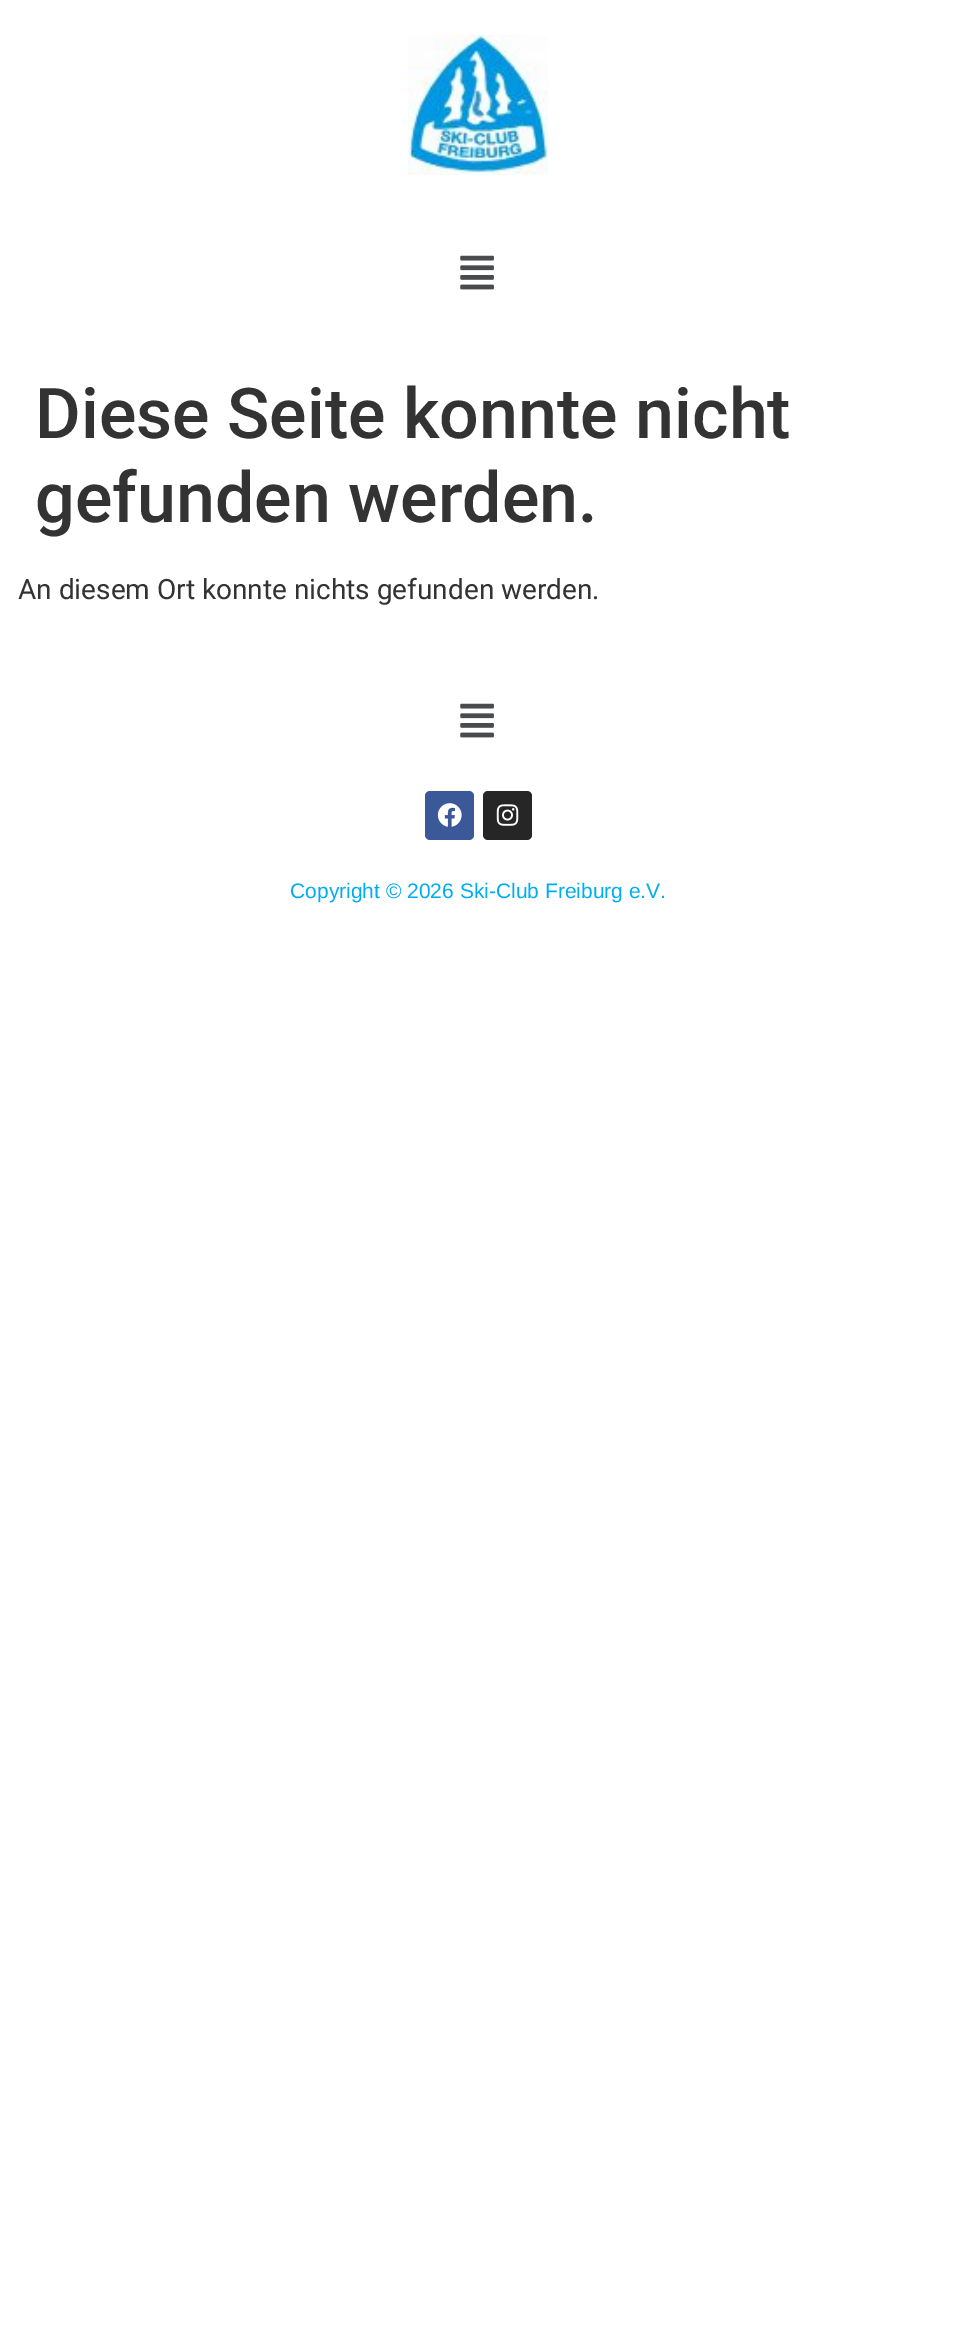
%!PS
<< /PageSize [954 2345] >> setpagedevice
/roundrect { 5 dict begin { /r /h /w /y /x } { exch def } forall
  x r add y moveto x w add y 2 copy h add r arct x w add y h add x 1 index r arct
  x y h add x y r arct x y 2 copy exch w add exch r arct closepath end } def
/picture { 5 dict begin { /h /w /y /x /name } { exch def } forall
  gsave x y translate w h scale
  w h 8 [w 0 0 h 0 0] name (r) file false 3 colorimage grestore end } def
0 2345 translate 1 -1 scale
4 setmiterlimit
1 setgray
0 0 954 2345 rectfill
(img1.rgb) 407 35 141 140 picture
(img2.rgb) 460 255 34 35 picture
/Roboto-Medium [70 0 0 -70 0 0] selectfont
0.2 setgray
35 438 moveto (Diese Seite konnte nicht) show
35 522 moveto (gefunden werden.) show
/Roboto-Regular [28 0 0 -28 0 0] selectfont
18 599 moveto (An diesem Ort konnte nichts gefunden werden.) show
(img2.rgb) 460 703 34 35 picture
0.231 0.349 0.596 setrgbcolor
425 791 49 49 5 roundrect fill
(img3.rgb) 437 803 25 24 picture
0.149 setgray
483 791 49 49 5 roundrect fill
(img4.rgb) 496 804 23 22 picture
/LiberationSans-Regular [21 0 0 -21 0 0] selectfont
0 0.678 0.937 setrgbcolor
290 898 moveto (Copyright © 2026 Ski-Club Freiburg e.V.) show
showpage
